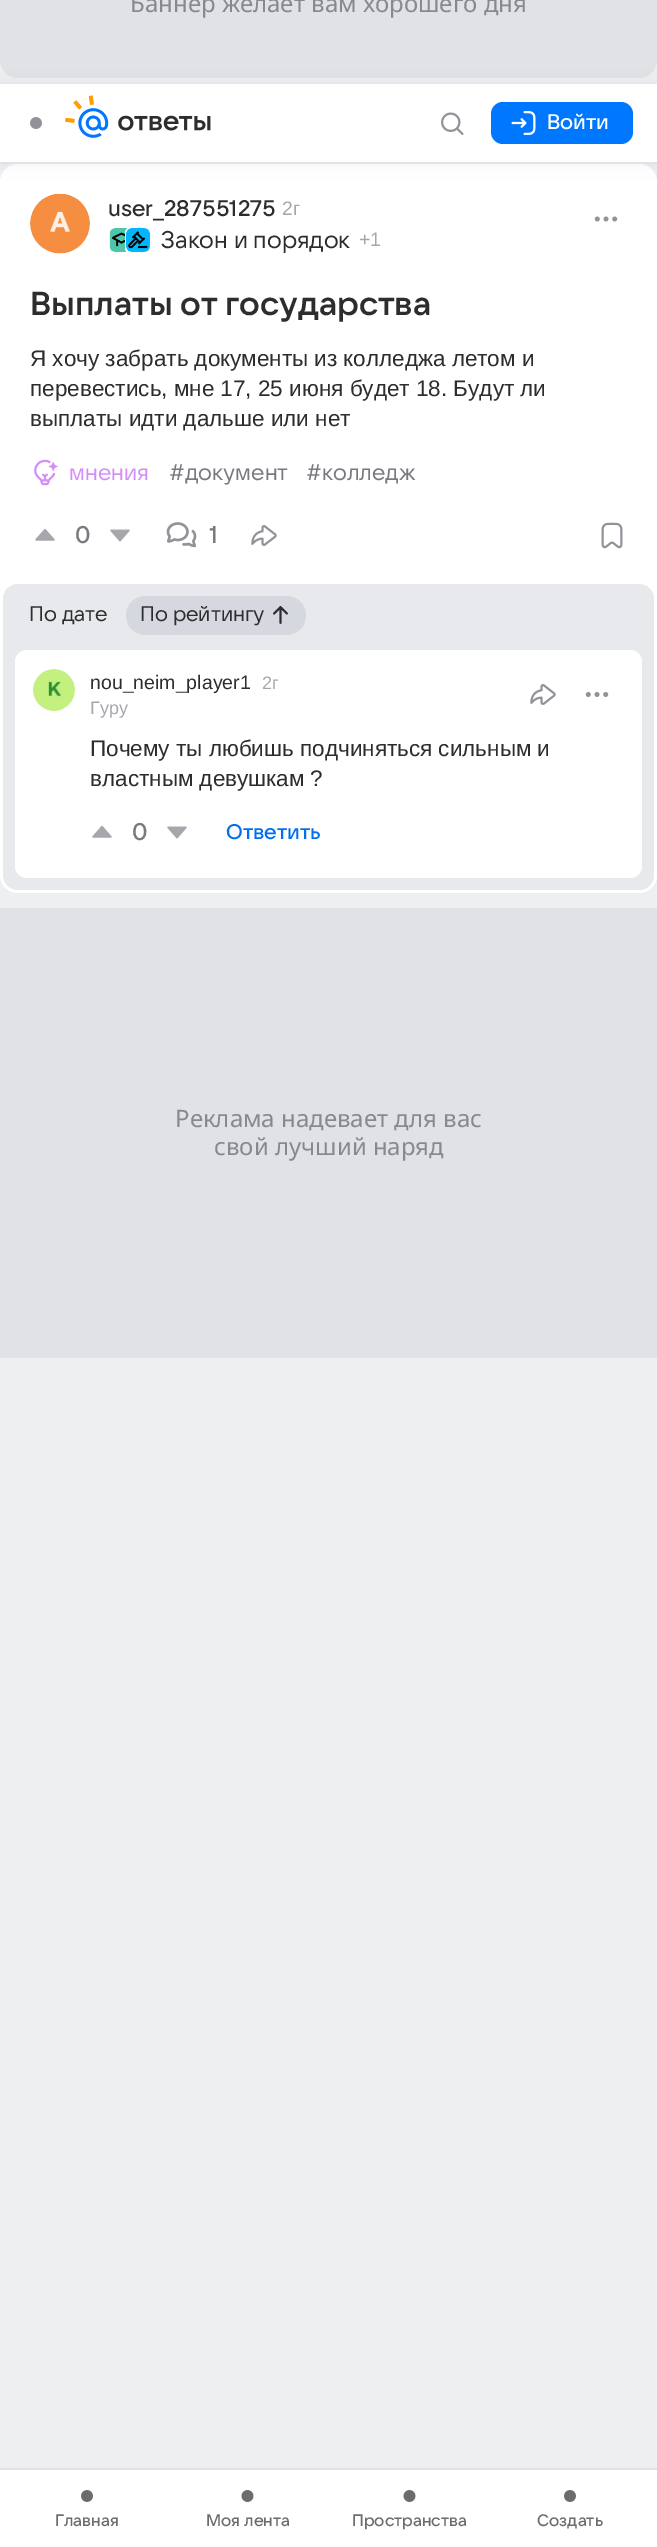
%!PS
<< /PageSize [657 2547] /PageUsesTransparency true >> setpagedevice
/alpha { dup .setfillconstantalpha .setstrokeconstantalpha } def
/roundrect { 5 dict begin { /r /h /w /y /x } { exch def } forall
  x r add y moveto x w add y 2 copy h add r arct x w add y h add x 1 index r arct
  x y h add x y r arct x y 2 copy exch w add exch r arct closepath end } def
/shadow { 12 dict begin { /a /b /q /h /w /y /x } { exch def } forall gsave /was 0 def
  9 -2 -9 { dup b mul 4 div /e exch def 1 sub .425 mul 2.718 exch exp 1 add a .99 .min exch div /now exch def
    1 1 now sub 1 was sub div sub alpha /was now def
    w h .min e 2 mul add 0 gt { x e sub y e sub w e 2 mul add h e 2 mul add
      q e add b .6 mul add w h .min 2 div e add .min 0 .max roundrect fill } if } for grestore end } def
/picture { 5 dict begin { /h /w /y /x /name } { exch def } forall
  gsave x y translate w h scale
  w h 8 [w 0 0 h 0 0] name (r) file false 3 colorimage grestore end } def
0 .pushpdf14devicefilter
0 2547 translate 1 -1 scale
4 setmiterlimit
0.933 0.937 0.945 setrgbcolor
0 0 657 2547 rectfill
0.878 0.886 0.902 setrgbcolor
0 -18 657 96 18 roundrect fill
/NotoSans-Regular [24 0 0 -24 0 0] selectfont
0.529 0.537 0.561 setrgbcolor
130 12 moveto (Баннер желает вам хорошего дня) show
1 setgray
0 164 657 729 18 roundrect fill
0 0.063 0.239 setrgbcolor
0 84 657 80 0 9 0.06 shadow
1 setgray
0 84 657 78 rectfill
0.878 0.886 0.91 setrgbcolor
0 162 657 2 rectfill
(img1.rgb) 30 117 12 12 picture
(img2.rgb) 65 95 146 43 picture
(img3.rgb) 441 112 23 23 picture
0 0.467 1 setrgbcolor
491 102 142 42 12 roundrect fill
(img4.rgb) 511 111 25 24 picture
/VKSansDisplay-Medium [21 0 0 -21 0 0] selectfont
1 setgray
547 129 moveto (Войти) show
0.941 0.945 0.953 setrgbcolor
newpath 60 224 30 0 360 arc closepath fill
(img5.rgb) 30 193 60 61 picture
/VKSansDisplay-Medium [22.5 0 0 -22.5 0 0] selectfont
0.173 0.176 0.18 setrgbcolor
108 216 moveto (user_287551275) show
/LiberationSans-Regular [19.5 0 0 -19.5 0 0] selectfont
0.647 0.655 0.678 setrgbcolor
282 215 moveto (2г) show
0.941 0.945 0.953 setrgbcolor
109 228 25 25 5 roundrect gsave fill grestore
1 setgray
2 setlinewidth
stroke
(img6.rgb) 109 228 19 24 picture
0.941 0.945 0.953 setrgbcolor
126 228 25 25 5 roundrect gsave fill grestore
1 setgray
stroke
(img7.rgb) 126 228 24 24 picture
/VKSansDisplay-Regular [24 0 0 -24 0 0] selectfont
0.173 0.176 0.18 setrgbcolor
161 248 moveto (Закон и порядок) show
/LiberationSans-Regular [19.5 0 0 -19.5 0 0] selectfont
0.647 0.655 0.678 setrgbcolor
359 246 moveto (+1) show
(img8.rgb) 594 216 24 6 picture
/VKSansDisplay-SemiBold [33 0 0 -33 0 0] selectfont
0.173 0.176 0.18 setrgbcolor
30 315 moveto (Выплаты от государства) show
/LiberationSans-Regular [22.5 0 0 -22.5 0 0] selectfont
30 366 moveto (Я хочу забрать документы из колледжа летом и) show
30 396 moveto (перевестись, мне 17, 25 июня будет 18. Будут ли) show
30 426 moveto (выплаты идти дальше или нет) show
(img9.rgb) 34 459 24 27 picture
/VKSansDisplay-Regular [22.5 0 0 -22.5 0 0] selectfont
0.831 0.557 0.969 setrgbcolor
69 480 moveto (мнения) show
0.475 0.478 0.502 setrgbcolor
169 480 moveto (#документ) show
306 480 moveto (#колледж) show
(img10.rgb) 35 528 20 13 picture
/VKSansDisplay-Medium [24 0 0 -24 0 0] selectfont
75 543 moveto (0) show
(img11.rgb) 110 529 20 13 picture
(img12.rgb) 166 522 31 26 picture
209 543 moveto (1) show
(img13.rgb) 251 525 26 21 picture
(img14.rgb) 601 522 22 27 picture
0.906 0.914 0.925 setrgbcolor
3 584 651 306 15 roundrect fill
/VKSansDisplay-Regular [21 0 0 -21 0 0] selectfont
0.173 0.176 0.18 setrgbcolor
29 621 moveto (По дате) show
0.835 0.847 0.871 setrgbcolor
126 596 180 39 19.5 roundrect fill
0.173 0.176 0.18 setrgbcolor
140 621 moveto (По рейтингу) show
(img15.rgb) 273 606 15 18 picture
1 setgray
15 650 627 228 12 roundrect fill
0.941 0.945 0.953 setrgbcolor
newpath 54 690 21 0 360 arc closepath fill
(img16.rgb) 33 669 42 42 picture
/LiberationSans-Regular [19.5 0 0 -19.5 0 0] selectfont
0.173 0.176 0.18 setrgbcolor
90 689 moveto (nou_neim_player1) show
/LiberationSans-Regular [18 0 0 -18 0 0] selectfont
0.647 0.655 0.678 setrgbcolor
90 714 moveto (Гуру) show
262 689 moveto (2г) show
(img13.rgb) 530 684 26 21 picture
(img17.rgb) 585 692 24 5 picture
/LiberationSans-Regular [22.5 0 0 -22.5 0 0] selectfont
0.173 0.176 0.18 setrgbcolor
90 756 moveto (Почему ты любишь подчиняться сильным и) show
90 786 moveto (властным девушкам ?) show
(img10.rgb) 92 825 20 13 picture
/VKSansDisplay-Medium [24 0 0 -24 0 0] selectfont
0.475 0.478 0.502 setrgbcolor
132 840 moveto (0) show
(img11.rgb) 167 826 20 13 picture
/VKSansDisplay-Medium [21 0 0 -21 0 0] selectfont
0 0.439 0.941 setrgbcolor
226 839 moveto (Ответить) show
0.06 alpha
0 0.063 0.239 setrgbcolor
0 908 657 450 rectfill
/NotoSans-Regular [24 0 0 -24 0 0] selectfont
1 alpha
0.529 0.537 0.561 setrgbcolor
175 1127 moveto (Реклама надевает для вас) show
214 1155 moveto (свой лучший наряд) show
1 setgray
0 2470 657 77 rectfill
0.878 0.886 0.91 setrgbcolor
0 2468 657 2 rectfill
(img18.rgb) 81 2490 12 12 picture
/VKSansDisplay-Medium [16.5 0 0 -16.5 0 0] selectfont
0.42 0.424 0.427 setrgbcolor
55 2526 moveto (Главная) show
(img19.rgb) 241 2490 13 12 picture
206 2526 moveto (Моя лента) show
(img19.rgb) 403 2490 13 12 picture
352 2526 moveto (Пространства) show
(img18.rgb) 564 2490 12 12 picture
537 2526 moveto (Создать) show
.poppdf14devicefilter showpage
